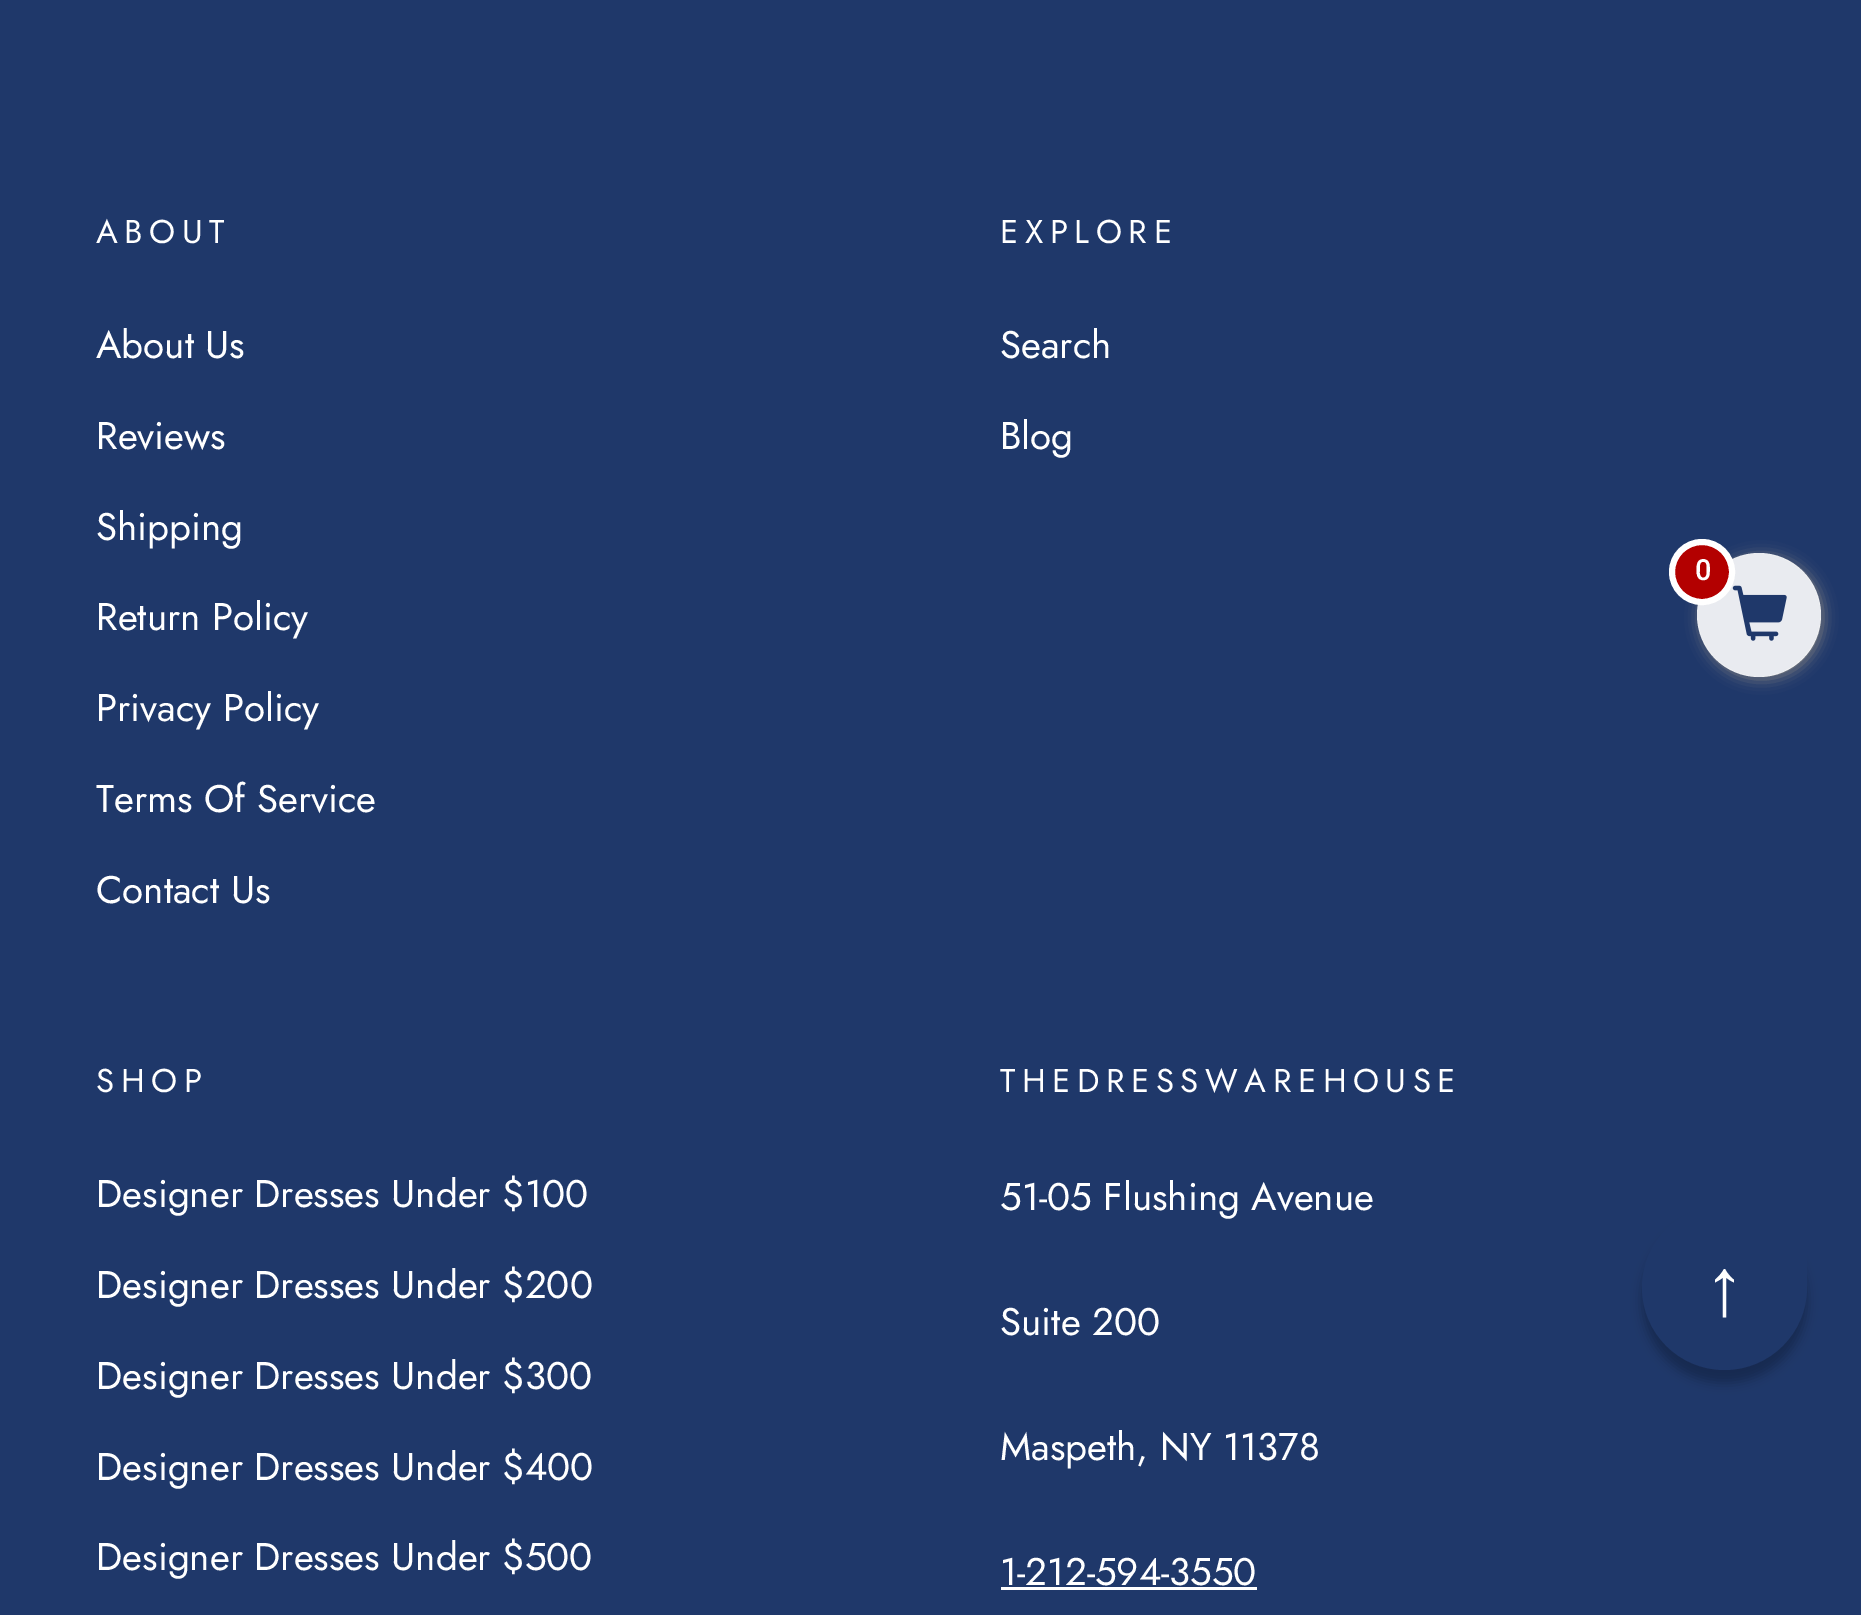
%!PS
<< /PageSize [1861 1615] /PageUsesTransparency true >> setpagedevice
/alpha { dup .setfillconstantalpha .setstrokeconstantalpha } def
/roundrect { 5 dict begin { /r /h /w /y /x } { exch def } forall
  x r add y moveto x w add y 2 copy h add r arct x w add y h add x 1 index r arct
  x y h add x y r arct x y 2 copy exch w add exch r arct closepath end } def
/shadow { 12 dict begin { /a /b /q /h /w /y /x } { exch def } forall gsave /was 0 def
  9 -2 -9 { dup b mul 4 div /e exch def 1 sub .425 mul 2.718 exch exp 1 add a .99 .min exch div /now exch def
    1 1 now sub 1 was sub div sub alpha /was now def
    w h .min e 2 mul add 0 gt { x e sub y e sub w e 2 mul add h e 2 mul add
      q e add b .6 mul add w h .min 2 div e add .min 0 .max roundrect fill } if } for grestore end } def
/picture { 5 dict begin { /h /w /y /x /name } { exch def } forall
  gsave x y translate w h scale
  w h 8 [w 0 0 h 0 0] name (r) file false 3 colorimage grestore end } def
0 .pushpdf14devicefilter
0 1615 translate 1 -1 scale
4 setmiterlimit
0.122 0.22 0.416 setrgbcolor
0 0 1861 1615 rectfill
/Jost-Regular [33 0 0 -33 0 0] selectfont
1 setgray
96 243 moveto 6.6 0 (ABOUT) ashow
/Jost-Regular [38.5 0 0 -38.5 0 0] selectfont
96 358 moveto (About Us) show
96 449 moveto (Reviews) show
96 540 moveto (Shipping) show
96 630 moveto (Return Policy) show
96 721 moveto (Privacy Policy) show
96 812 moveto (Terms Of Service) show
96 903 moveto (Contact Us) show
/Jost-Regular [33 0 0 -33 0 0] selectfont
1000 243 moveto 6.6 0 (EXPLORE) ashow
/Jost-Regular [38.5 0 0 -38.5 0 0] selectfont
1000 358 moveto (Search) show
1000 449 moveto (Blog) show
/Jost-Regular [33 0 0 -33 0 0] selectfont
96 1092 moveto 6.6 0 (SHOP) ashow
/Jost-Regular [38.5 0 0 -38.5 0 0] selectfont
96 1207 moveto (Designer Dresses Under $100) show
96 1298 moveto (Designer Dresses Under $200) show
96 1389 moveto (Designer Dresses Under $300) show
96 1480 moveto (Designer Dresses Under $400) show
96 1570 moveto (Designer Dresses Under $500) show
/Jost-Regular [33 0 0 -33 0 0] selectfont
1000 1092 moveto 6.6 0 (THEDRESSWAREHOUSE) ashow
/Jost-Regular [38.5 0 0 -38.5 0 0] selectfont
1000 1210 moveto (51-05 Flushing Avenue) show
1000 1335 moveto (Suite 200) show
1000 1460 moveto (Maspeth, NY 11378) show
1000 1585 moveto (1-212-594-3550) show
1001 1587 256 3 rectfill
gsave
newpath 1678 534 moveto 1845 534 lineto 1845 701 lineto 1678 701 lineto closepath 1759 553 moveto 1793 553 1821 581 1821 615 curveto 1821 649 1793 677 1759 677 curveto 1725 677 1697 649 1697 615 curveto 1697 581 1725 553 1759 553 curveto closepath eoclip newpath
0.502 setgray
1700 556 123 123 61.5 7 1 shadow
grestore
0.9 alpha
newpath 1759 615 62 0 360 arc closepath fill
1 alpha
(img1.rgb) 1732 585 55 56 picture
0.702 0 0 setrgbcolor
newpath 1702 572 30 0 360 arc closepath gsave fill grestore
1 setgray
6 setlinewidth
stroke
/Roboto-Bold [28 0 0 -28 0 0] selectfont
1695 580 moveto (0) show
0 setgray
1642 1218 165 165 82.5 5.5 0.26 shadow
0.122 0.22 0.416 setrgbcolor
newpath 1724.5 1205 moveto 1788 1205 lineto 1798.5 1205 1807 1213.5 1807 1224 curveto 1807 1287.5 lineto 1807 1333 1770 1370 1724.5 1370 curveto 1679 1370 1642 1333 1642 1287.5 curveto 1642 1242 1679 1205 1724.5 1205 curveto closepath fill
/LiberationSans-Regular [82 0 0 -82 0 0] selectfont
1 setgray
1704 1315 moveto (↑) show
.poppdf14devicefilter showpage
